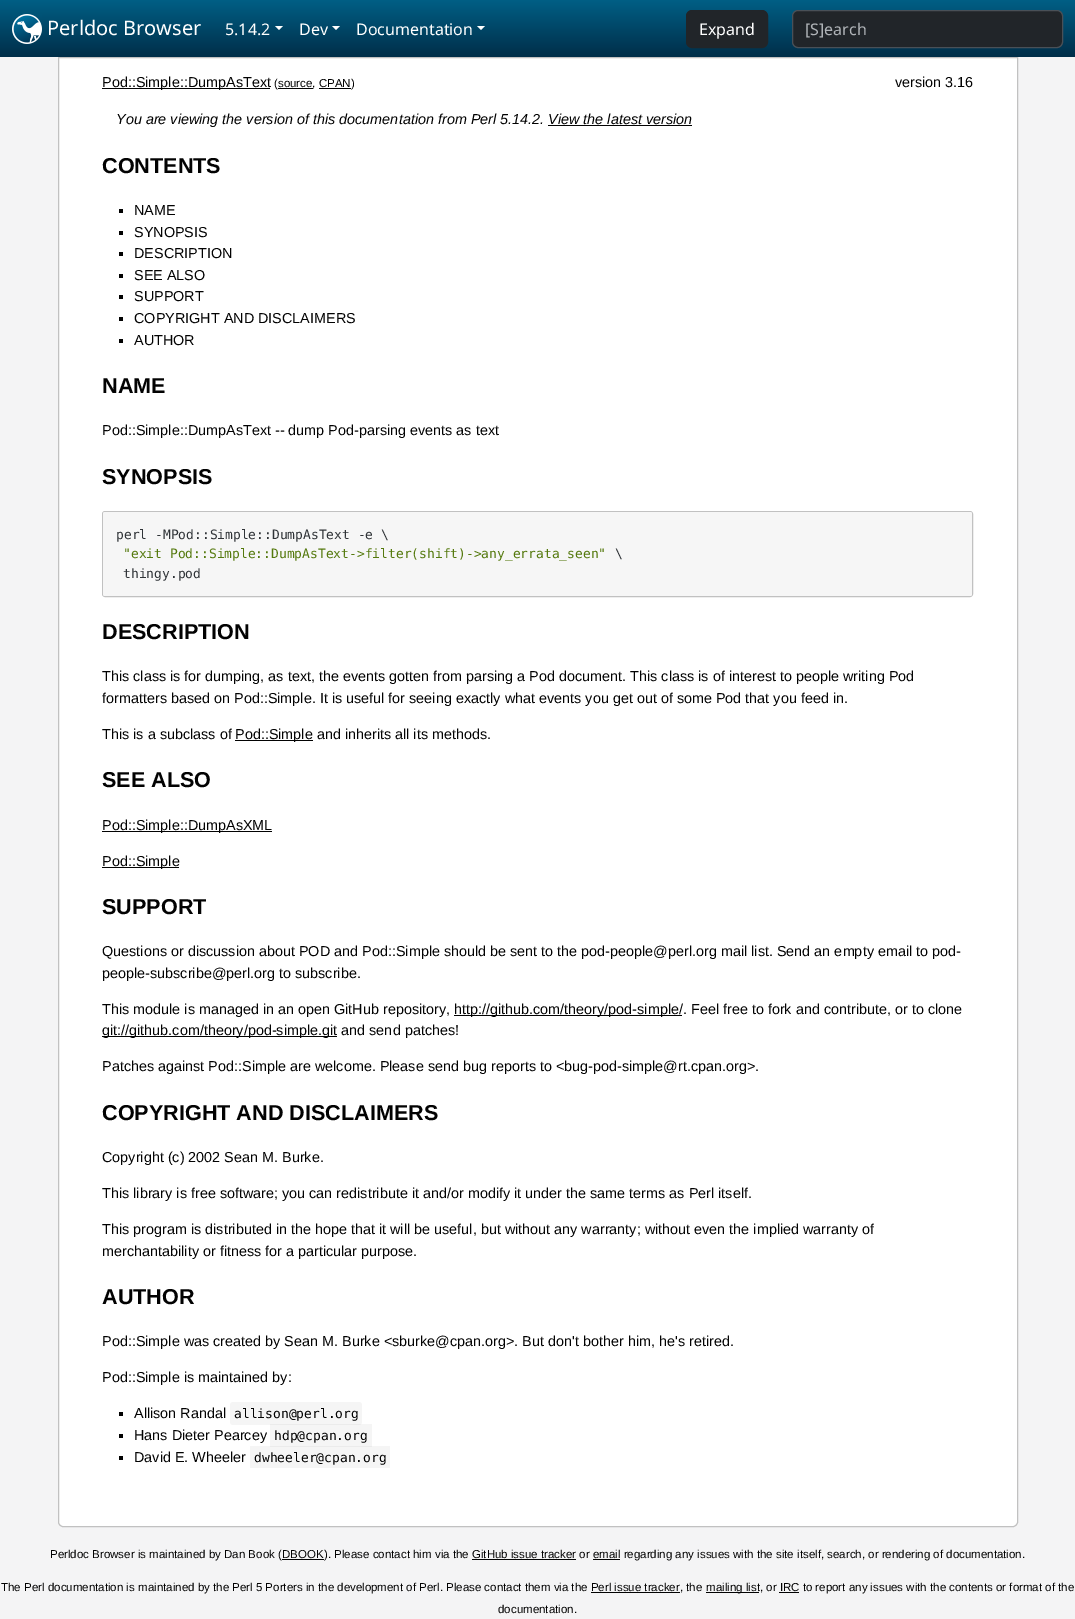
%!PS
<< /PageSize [1075 1619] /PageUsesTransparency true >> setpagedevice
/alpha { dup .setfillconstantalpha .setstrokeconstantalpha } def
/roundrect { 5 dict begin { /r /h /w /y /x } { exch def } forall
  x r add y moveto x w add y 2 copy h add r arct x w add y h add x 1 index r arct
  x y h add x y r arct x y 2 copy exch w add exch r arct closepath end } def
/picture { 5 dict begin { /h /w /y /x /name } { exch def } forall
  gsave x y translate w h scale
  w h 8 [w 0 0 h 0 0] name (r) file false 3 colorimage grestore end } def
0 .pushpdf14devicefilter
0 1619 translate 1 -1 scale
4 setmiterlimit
0.957 0.957 0.961 setrgbcolor
0 0 1075 1619 rectfill
gsave newpath 0 0 moveto 1075 0 lineto 1075 57 lineto 0 57 lineto closepath clip newpath
<< /ShadingType 2 /ColorSpace /DeviceRGB /Coords [538 0 538 57] /Extend [true true] /Function << /FunctionType 2 /Domain [0 1] /C0 [0 0.373 0.522] /C1 [0 0.18 0.286] /N 1 >> >> shfill grestore
(img1.rgb) 12 14 30 30 picture
/NotoSans-Regular [20 0 0 -20 0 0] selectfont
1 setgray
47 35 moveto (Perldoc Browser) show
/NotoSans-Regular [16 0 0 -16 0 0] selectfont
225 35 moveto (5.14.2) show
newpath 275 26 moveto 283 26 lineto 279 30 lineto closepath fill
299 35 moveto (Dev) show
newpath 332 26 moveto 340 26 lineto 336 30 lineto closepath fill
356 35 moveto (Documentation) show
newpath 477 26 moveto 485 26 lineto 481 30 lineto closepath fill
0.129 0.145 0.161 setrgbcolor
686.5 10.5 81 37 5.5 roundrect gsave fill grestore
stroke
1 setgray
699 35 moveto (Expand) show
0.129 0.145 0.161 setrgbcolor
792.5 10.5 270 37 5.5 roundrect gsave fill grestore
0.286 0.314 0.341 setrgbcolor
stroke
0.686 0.702 0.718 setrgbcolor
805 35 moveto ([S]earch) show
1 setgray
newpath 58.5 57.5 moveto 1017.5 57.5 lineto 1017.5 1522 lineto 1017.5 1524.5 1015.5 1526.5 1013 1526.5 curveto 63 1526.5 lineto 60.5 1526.5 58.5 1524.5 58.5 1522 curveto closepath gsave fill grestore
0.757 setgray
stroke
0.008 setgray
102 88 168 1 rectfill
/LiberationSans-Regular [14.4 0 0 -14.4 0 0] selectfont
102 87 moveto (Pod::Simple::DumpAsText) show
/LiberationSans-Regular [11.52 0 0 -11.52 0 0] selectfont
274 87 moveto (\(source, CPAN\)) show
278 88 35 1 rectfill
319 88 32 1 rectfill
/LiberationSans-Regular [14.4 0 0 -14.4 0 0] selectfont
895 87 moveto (version 3.16) show
/LiberationSans-Italic [14.4 0 0 -14.4 0 0] selectfont
116 124 moveto (You are viewing the version of this documentation from Perl 5.14.2. View the latest version) show
548 125 144 1 rectfill
/LiberationSans-Bold [21.6 0 0 -21.6 0 0] selectfont
102 173 moveto (CONTENTS) show
119 209 4 4 rectfill
/LiberationSans-Regular [14.4 0 0 -14.4 0 0] selectfont
134 215 moveto (NAME) show
119 231 4 4 rectfill
134 237 moveto (SYNOPSIS) show
119 252 4 4 rectfill
134 258 moveto (DESCRIPTION) show
119 274 4 4 rectfill
134 280 moveto (SEE ALSO) show
119 295 4 4 rectfill
134 301 moveto (SUPPORT) show
119 317 4 4 rectfill
134 323 moveto (COPYRIGHT AND DISCLAIMERS) show
119 339 4 4 rectfill
134 345 moveto (AUTHOR) show
/LiberationSans-Bold [21.6 0 0 -21.6 0 0] selectfont
102 393 moveto (NAME) show
/LiberationSans-Regular [14.4 0 0 -14.4 0 0] selectfont
102 435 moveto (Pod::Simple::DumpAsText -- dump Pod-parsing events as text) show
/LiberationSans-Bold [21.6 0 0 -21.6 0 0] selectfont
102 484 moveto (SYNOPSIS) show
0.757 setgray
102.5 511.5 870 85 2.5 roundrect stroke
0.965 setgray
103 512 869 84 2 roundrect fill
/DejaVuSansMono-Regular [12.95 0 0 -12.95 0 0] selectfont
0.184 0.2 0.216 setrgbcolor
116 539 moveto (perl -MPod::Simple::DumpAsText -e \\) show
0.329 0.475 0.051 setrgbcolor
123 558 moveto ("exit Pod::Simple::DumpAsText->filter\(shift\)->any_errata_seen") show
0.184 0.2 0.216 setrgbcolor
615 558 moveto (\\) show
123 578 moveto (thingy.pod) show
/LiberationSans-Bold [21.6 0 0 -21.6 0 0] selectfont
0.008 setgray
102 639 moveto (DESCRIPTION) show
/LiberationSans-Regular [14.4 0 0 -14.4 0 0] selectfont
102 681 moveto (This class is for dumping, as text, the events gotten from parsing a Pod document. This class is of interest to people writing Pod) show
102 703 moveto (formatters based on Pod::Simple. It is useful for seeing exactly what events you get out of some Pod that you feed in.) show
102 739 moveto (This is a subclass of) show
235 740 78 1 rectfill
235 739 moveto (Pod::Simple and inherits all its methods.) show
/LiberationSans-Bold [21.6 0 0 -21.6 0 0] selectfont
102 787 moveto (SEE ALSO) show
102 831 170 1 rectfill
/LiberationSans-Regular [14.4 0 0 -14.4 0 0] selectfont
102 830 moveto (Pod::Simple::DumpAsXML) show
102 867 77 1 rectfill
102 866 moveto (Pod::Simple) show
/LiberationSans-Bold [21.6 0 0 -21.6 0 0] selectfont
102 914 moveto (SUPPORT) show
/LiberationSans-Regular [14.4 0 0 -14.4 0 0] selectfont
102 956 moveto (Questions or discussion about POD and Pod::Simple should be sent to the pod-people@perl.org mail list. Send an empty email to pod-) show
102 978 moveto (people-subscribe@perl.org to subscribe.) show
102 1014 moveto (This module is managed in an open GitHub repository,) show
454 1015 228 1 rectfill
454 1014 moveto (http://github.com/theory/pod-simple/. Feel free to fork and contribute, or to clone) show
102 1036 235 1 rectfill
102 1035 moveto (git://github.com/theory/pod-simple.git and send patches!) show
102 1071 moveto (Patches against Pod::Simple are welcome. Please send bug reports to <bug-pod-simple@rt.cpan.org>.) show
/LiberationSans-Bold [21.6 0 0 -21.6 0 0] selectfont
102 1120 moveto (COPYRIGHT AND DISCLAIMERS) show
/LiberationSans-Regular [14.4 0 0 -14.4 0 0] selectfont
102 1162 moveto (Copyright \(c\) 2002 Sean M. Burke.) show
102 1198 moveto (This library is free software; you can redistribute it and/or modify it under the same terms as Perl itself.) show
102 1234 moveto (This program is distributed in the hope that it will be useful, but without any warranty; without even the implied warranty of) show
102 1256 moveto (merchantability or fitness for a particular purpose.) show
/LiberationSans-Bold [21.6 0 0 -21.6 0 0] selectfont
102 1304 moveto (AUTHOR) show
/LiberationSans-Regular [14.4 0 0 -14.4 0 0] selectfont
102 1346 moveto (Pod::Simple was created by Sean M. Burke <sburke@cpan.org>. But don't bother him, he's retired.) show
102 1382 moveto (Pod::Simple is maintained by:) show
119 1412 4 4 rectfill
134 1418 moveto (Allison Randal) show
0.961 setgray
230 1402 132 23 3 roundrect fill
/DejaVuSansMono-Regular [12.95 0 0 -12.95 0 0] selectfont
0.008 setgray
234 1418 moveto (allison@perl.org) show
119 1434 4 4 rectfill
/LiberationSans-Regular [14.4 0 0 -14.4 0 0] selectfont
134 1440 moveto (Hans Dieter Pearcey) show
0.04 alpha
0 setgray
270 1424 102 23 rectfill
/DejaVuSansMono-Regular [12.95 0 0 -12.95 0 0] selectfont
1 alpha
0.008 setgray
274 1440 moveto (hdp@cpan.org) show
119 1456 4 4 rectfill
/LiberationSans-Regular [14.4 0 0 -14.4 0 0] selectfont
134 1462 moveto (David E. Wheeler) show
0.04 alpha
0 setgray
250 1446 140 22 rectfill
/DejaVuSansMono-Regular [12.95 0 0 -12.95 0 0] selectfont
1 alpha
0.008 setgray
254 1462 moveto (dwheeler@cpan.org) show
/LiberationSans-Regular [11.52 0 0 -11.52 0 0] selectfont
50 1558 moveto (Perldoc Browser is maintained by Dan Book \(DBOOK) show
282 1559 42 1 rectfill
324 1558 moveto (\). Please contact him via the GitHub issue tracker or email regarding any issues with the site itself, search, or rendering of documentation.) show
472 1559 104 1 rectfill
593 1559 27 1 rectfill
1 1591 moveto (The Perl documentation is maintained by the Perl 5 Porters in the development of Perl. Please contact them via the Perl issue tracker, the) show
706 1592 53 1 rectfill
706 1591 moveto (mailing list, or IRC to report any issues with the contents or format of the) show
591 1592 89 1 rectfill
779 1592 20 1 rectfill
498 1613 moveto (documentation.) show
.poppdf14devicefilter showpage
